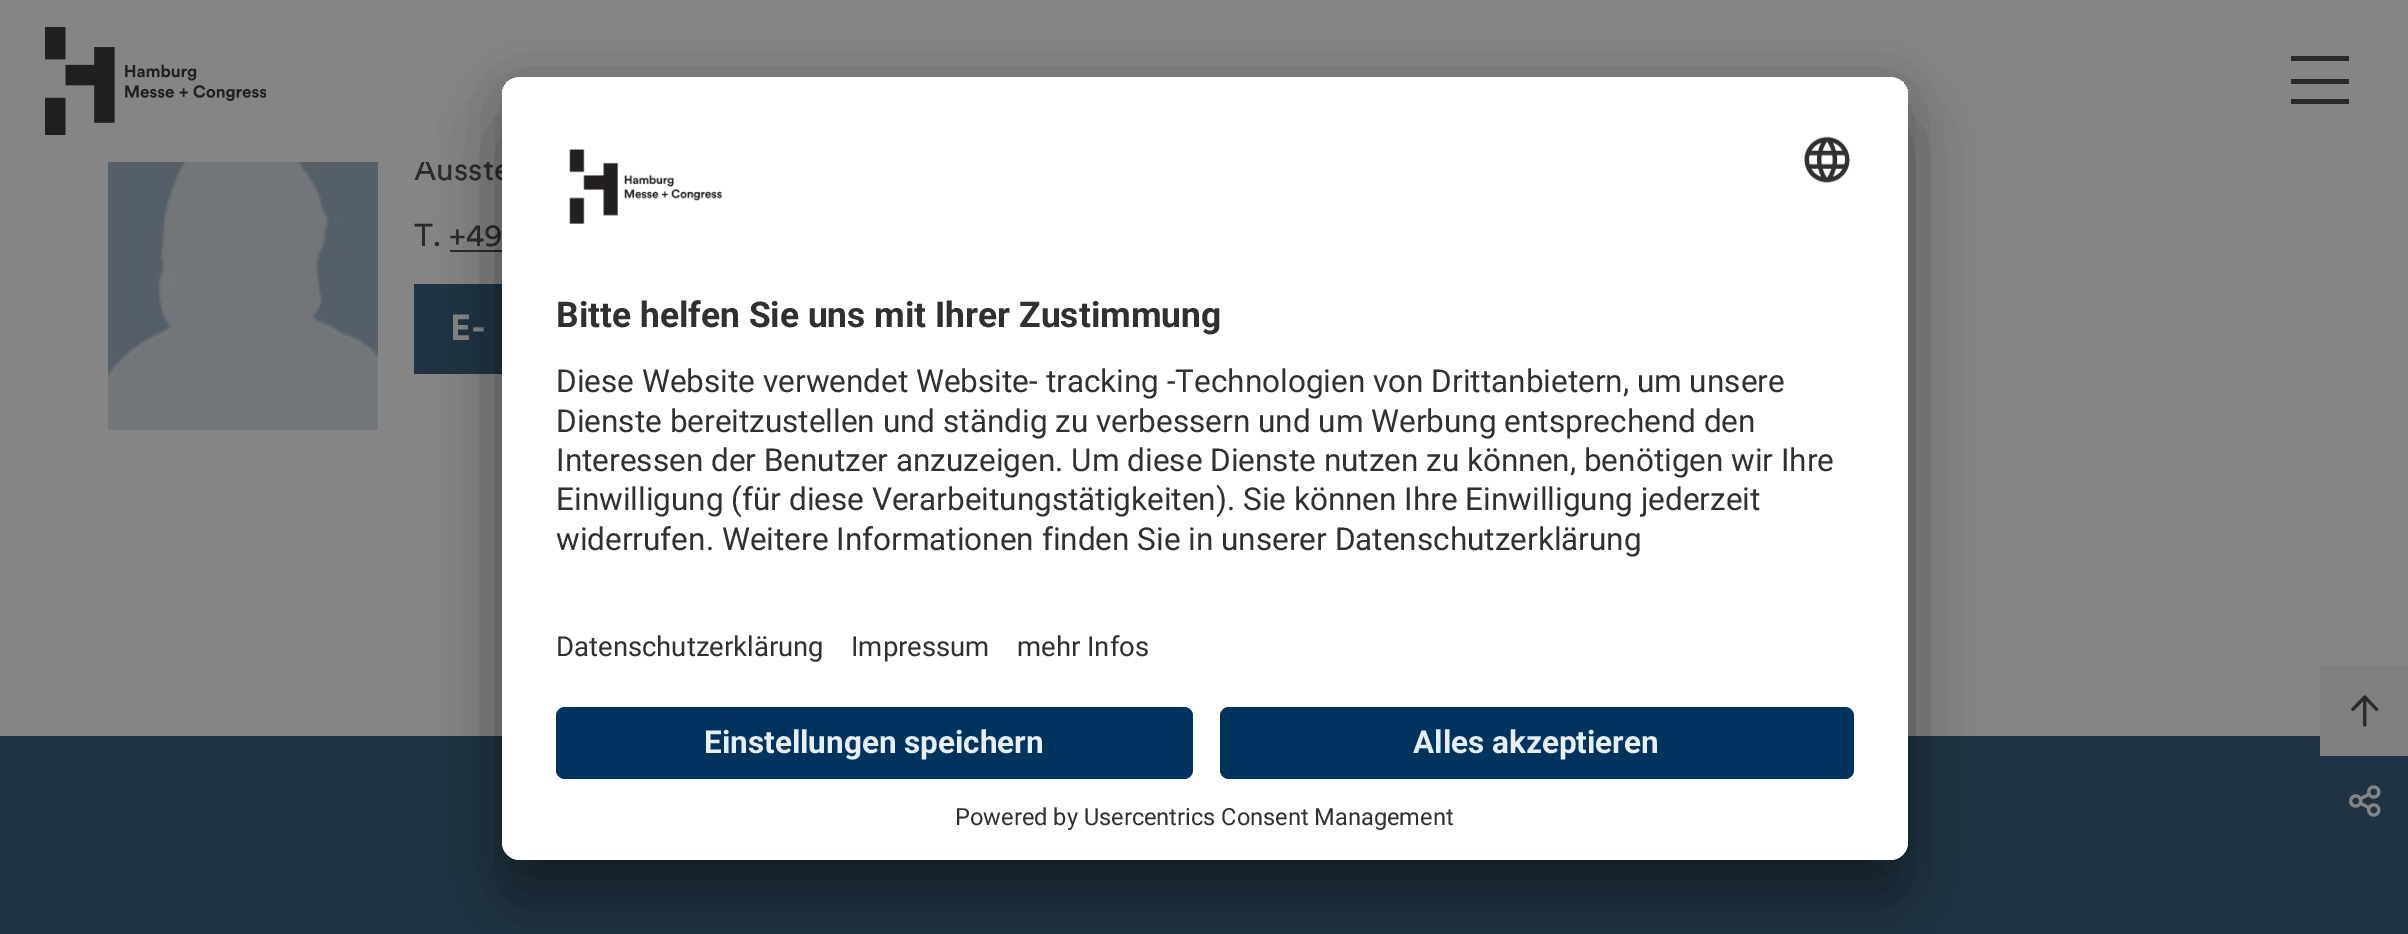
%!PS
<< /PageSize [2408 934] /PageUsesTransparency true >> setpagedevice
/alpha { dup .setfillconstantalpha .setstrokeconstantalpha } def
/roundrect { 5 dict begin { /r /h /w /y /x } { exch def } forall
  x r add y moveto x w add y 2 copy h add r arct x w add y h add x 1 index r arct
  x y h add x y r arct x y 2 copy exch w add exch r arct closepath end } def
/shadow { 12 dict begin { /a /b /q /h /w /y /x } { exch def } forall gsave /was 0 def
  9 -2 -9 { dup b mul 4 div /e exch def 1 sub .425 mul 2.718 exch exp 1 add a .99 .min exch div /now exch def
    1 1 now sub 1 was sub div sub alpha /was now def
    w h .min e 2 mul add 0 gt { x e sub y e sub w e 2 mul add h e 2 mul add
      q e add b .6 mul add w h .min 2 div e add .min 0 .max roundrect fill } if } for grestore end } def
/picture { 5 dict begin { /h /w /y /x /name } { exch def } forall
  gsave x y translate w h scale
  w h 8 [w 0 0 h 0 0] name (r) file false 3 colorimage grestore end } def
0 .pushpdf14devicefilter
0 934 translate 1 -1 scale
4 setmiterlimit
0.522 setgray
0 0 2408 934 rectfill
/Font-Regular [31.5 0 0 -31.5 0 0] selectfont
0.161 0.165 0.169 setrgbcolor
414 180 moveto (Ausste) show
0.522 setgray
421 157 69 5 rectfill
(img1.rgb) 45 27 221 108 picture
0.161 0.165 0.169 setrgbcolor
2291 56 58 5 rectfill
2291 79 58 5 rectfill
2291 99 58 5 rectfill
(img2.rgb) 108 162 270 268 picture
414 246 moveto (T. +49) show
450 250 52 2 rectfill
0.122 0.2 0.267 setrgbcolor
414 284 88 90 rectfill
/Font-Bold [36 0 0 -36 0 0] selectfont
0.522 setgray
450 340 moveto (E-) show
0.122 0.2 0.267 setrgbcolor
0 736 2408 198 rectfill
0 setgray
502 122 1406 783 18 31.5 0.3 shadow
502 88 1406 783 18 29 0.22 shadow
1 setgray
502 77 1406 783 18 roundrect fill
gsave
502 77 1406 783 18 roundrect clip newpath
newpath 520 77 moveto 1890 77 lineto 1900 77 1908 85 1908 95 curveto 1908 689 lineto 502 689 lineto 502 95 lineto 502 85 510 77 520 77 curveto closepath clip newpath
502 79 1406 610 rectfill
grestore
(img3.rgb) 569 149 154 75 picture
(img4.rgb) 1804 136 47 47 picture
/Roboto-Bold [35.4 0 0 -35.4 0 0] selectfont
0.188 setgray
556 327 moveto (Bitte helfen Sie uns mit Ihrer Zustimmung) show
/Roboto-Regular [31.5 0 0 -31.5 0 0] selectfont
556 392 moveto (Diese Website verwendet Website- tracking -Technologien von Drittanbietern, um unsere) show
556 432 moveto (Dienste bereitzustellen und ständig zu verbessern und um Werbung entsprechend den) show
556 471 moveto (Interessen der Benutzer anzuzeigen. Um diese Dienste nutzen zu können, benötigen wir Ihre) show
556 510 moveto (Einwilligung \(für diese Verarbeitungstätigkeiten\). Sie können Ihre Einwilligung jederzeit) show
556 550 moveto (widerrufen. Weitere Informationen finden Sie in unserer Datenschutzerklärung) show
/Roboto-Regular [27.5 0 0 -27.5 0 0] selectfont
556 656 moveto (Datenschutzerklärung) show
851 656 moveto (Impressum) show
1017 656 moveto (mehr Infos) show
1 setgray
newpath 502 689 moveto 1908 689 lineto 1908 842 lineto 1908 852 1900 860 1890 860 curveto 520 860 lineto 510 860 502 852 502 842 curveto closepath fill
0 0.2 0.365 setrgbcolor
556 707 637 72 9 roundrect fill
/Roboto-Bold [31.5 0 0 -31.5 0 0] selectfont
0.906 0.937 0.961 setrgbcolor
704 753 moveto (Einstellungen speichern) show
0 0.2 0.365 setrgbcolor
1220 707 634 72 9 roundrect fill
0.906 0.937 0.961 setrgbcolor
1413 753 moveto (Alles akzeptieren) show
/Roboto-Regular [23.6 0 0 -23.6 0 0] selectfont
0.188 setgray
955 825 moveto (Powered by Usercentrics Consent Management) show
0.498 setgray
2320 666 88 90 rectfill
(img5.rgb) 2351 695 28 32 picture
(img6.rgb) 2349 785 32 32 picture
.poppdf14devicefilter showpage
